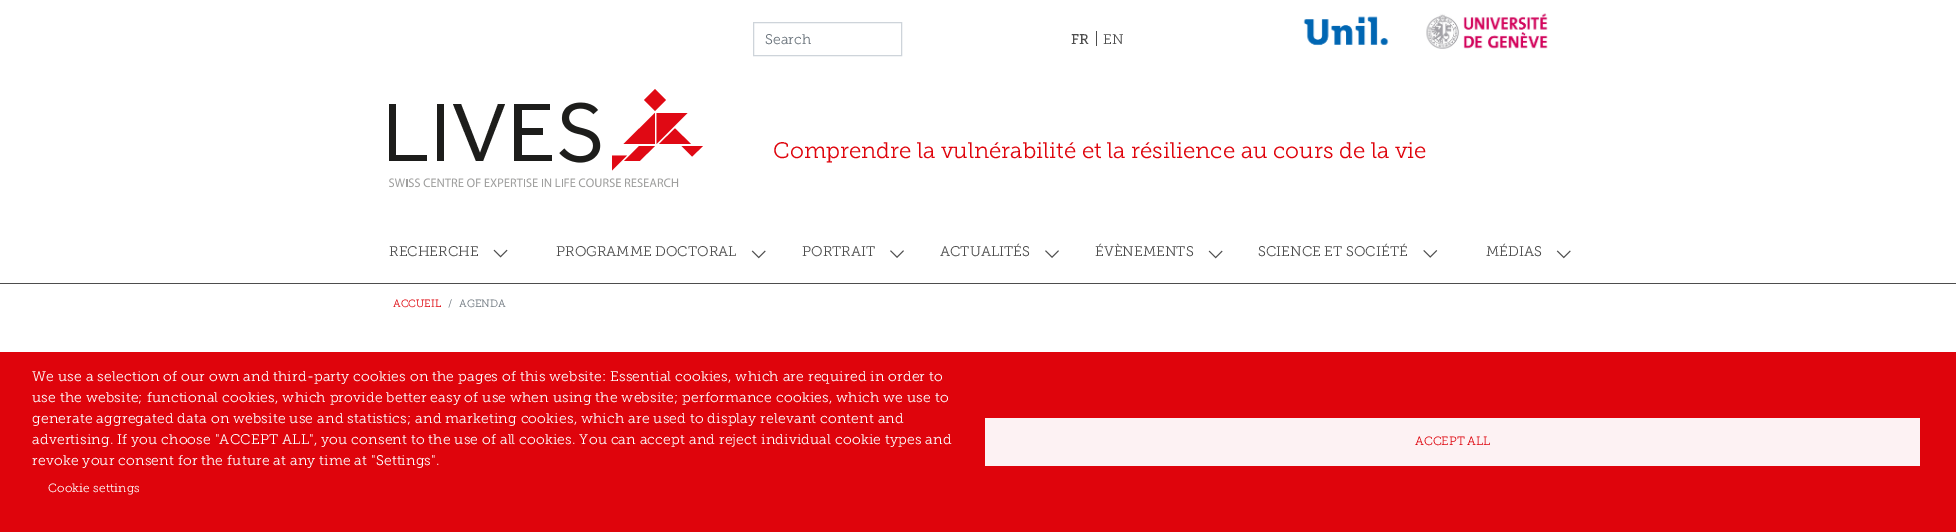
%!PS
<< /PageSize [1956 532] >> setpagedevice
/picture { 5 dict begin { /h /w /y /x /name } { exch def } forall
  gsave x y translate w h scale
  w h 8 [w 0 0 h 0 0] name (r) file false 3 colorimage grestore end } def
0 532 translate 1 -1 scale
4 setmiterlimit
1 setgray
0 0 1956 532 rectfill
0.302 setgray
0 283 1956 1 rectfill
0.808 0.831 0.855 setrgbcolor
753.5 22.5 148 33 rectstroke
/MuseoSlab-Regular [14 0 0 -14 0 0] selectfont
0.424 0.459 0.49 setrgbcolor
765 44 moveto (Search) show
/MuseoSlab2-Regular [14 0 0 -14 0 0] selectfont
0.302 setgray
1071 44 moveto (FR) show
1096 31 1 15 rectfill
/MuseoSlab-Regular [14 0 0 -14 0 0] selectfont
1103 44 moveto (EN) show
(img1.rgb) 1303 16 86 30 picture
(img2.rgb) 1426 13 122 36 picture
0.114 0.114 0.106 setrgbcolor
newpath 389 104 moveto 389 161 lineto 427 161 lineto 427 155 lineto 396 155 lineto 396 104 lineto closepath fill
437 104 7 57 rectfill
newpath 476 161 moveto 453 104 lineto 461 104 lineto 480 153 lineto 498 104 lineto 505 104 lineto 483 161 lineto closepath fill
newpath 514 161 moveto 514 104 lineto 550 104 lineto 550 110 lineto 522 110 lineto 522 128 lineto 543 128 lineto 543 135 lineto 522 135 lineto 522 155 lineto 552 155 lineto 552 161 lineto closepath fill
(img3.rgb) 559 102 42 61 picture
0.878 0.035 0.078 setrgbcolor
newpath 644 100 moveto 655 89 lineto 666 100 lineto 655 111 lineto closepath fill
newpath 655 113 moveto 623.5 144 lineto 655 144 lineto closepath fill
newpath 656.5 144 moveto 687.5 113 lineto 656.5 113 lineto closepath fill
newpath 612 170.5 moveto 627 155.5 lineto 612 155.5 lineto closepath fill
newpath 655 146 moveto 639.5 161 lineto 624 161 lineto 639 146 lineto closepath fill
newpath 691 144 moveto 675 128.5 lineto 659 144 lineto closepath 681.5 146 moveto 692 156.5 lineto 703 146 lineto closepath fill
(img4.rgb) 389 178 5 10 picture
(img5.rgb) 394 178 11 9 picture
0.616 0.616 0.612 setrgbcolor
406 179 2 8 rectfill
(img6.rgb) 408 178 6 10 picture
(img7.rgb) 414 178 6 10 picture
(img8.rgb) 423 178 7 10 picture
(img9.rgb) 431 178 6 9 picture
(img10.rgb) 437 178 7 9 picture
(img11.rgb) 444 178 7 9 picture
(img12.rgb) 451 178 7 9 picture
(img13.rgb) 458 178 6 9 picture
(img14.rgb) 467 178 8 10 picture
(img15.rgb) 476 178 5 9 picture
(img16.rgb) 484 178 6 9 picture
(img17.rgb) 490 178 7 9 picture
(img18.rgb) 498 178 6 9 picture
(img19.rgb) 504 178 6 9 picture
(img20.rgb) 510 178 7 9 picture
(img21.rgb) 516 178 7 9 picture
524 179 1 8 rectfill
(img22.rgb) 526 178 6 10 picture
(img23.rgb) 533 178 5 9 picture
542 179 1 8 rectfill
(img24.rgb) 544 178 8 9 picture
(img25.rgb) 555 178 6 9 picture
562 179 1 8 rectfill
(img26.rgb) 564 178 5 9 picture
(img27.rgb) 570 178 6 9 picture
(img28.rgb) 578 178 8 10 picture
(img29.rgb) 586 178 8 10 picture
(img30.rgb) 595 178 7 10 picture
(img31.rgb) 603 178 6 9 picture
(img32.rgb) 609 178 6 10 picture
(img33.rgb) 616 178 5 9 picture
(img34.rgb) 625 178 6 9 picture
(img35.rgb) 631 178 6 9 picture
(img36.rgb) 637 178 6 10 picture
(img37.rgb) 644 178 5 9 picture
(img38.rgb) 649 178 8 9 picture
(img39.rgb) 657 178 7 9 picture
(img40.rgb) 664 178 7 10 picture
(img41.rgb) 671 178 8 9 picture
/MuseoSlab-Regular [22.4 0 0 -22.4 0 0] selectfont
0.875 0.016 0.047 setrgbcolor
773 158 moveto (Comprendre la vulnérabilité et la résilience au cours de la vie) show
/MuseoSlab-Regular [14 0 0 -14 0 0] selectfont
0.302 setgray
389 256 moveto (RECHERCHE) show
(img42.rgb) 493 249 15 9 picture
556 256 moveto (PROGRAMME DOCTORAL) show
(img43.rgb) 751 250 15 9 picture
802 256 moveto (PORTRAIT) show
(img44.rgb) 890 250 14 8 picture
940 256 moveto (ACTUALITÉS) show
(img44.rgb) 1045 250 14 8 picture
1095 256 moveto (ÉVÈNEMENTS) show
(img45.rgb) 1208 250 15 9 picture
1258 256 moveto (SCIENCE ET SOCIÉTÉ) show
(img46.rgb) 1423 250 15 8 picture
1486 256 moveto (MÉDIAS) show
(img47.rgb) 1556 250 15 9 picture
/MuseoSlab-Regular [10.5 0 0 -10.5 0 0] selectfont
0.875 0.016 0.047 setrgbcolor
393 307 moveto (ACCUEIL) show
0.424 0.459 0.49 setrgbcolor
448 307 moveto (/) show
459 307 moveto (AGENDA) show
0.875 0.016 0.047 setrgbcolor
0 352 1956 180 rectfill
/MuseoSlab-Regular [14 0 0 -14 0 0] selectfont
1 setgray
32 381 moveto 0.2 0 (We use a selection of our own and third-party cookies on the pages of this website: Essential cookies, which are required in order to) ashow
32 402 moveto 0.2 0 (use the website; functional cookies, which provide better easy of use when using the website; performance cookies, which we use to) ashow
32 423 moveto 0.2 0 (generate aggregated data on website use and statistics; and marketing cookies, which are used to display relevant content and) ashow
32 444 moveto 0.2 0 (advertising. If you choose "ACCEPT ALL", you consent to the use of all cookies. You can accept and reject individual cookie types and) ashow
32 465 moveto 0.2 0 (revoke your consent for the future at any time at "Settings".) ashow
/MuseoSlab-Regular [12 0 0 -12 0 0] selectfont
48 492 moveto 0.2 0 (Cookie settings) ashow
0.992 0.949 0.953 setrgbcolor
985 418 935 48 rectfill
0.875 0.016 0.047 setrgbcolor
1415 445 moveto (ACCEPT ALL) show
showpage
